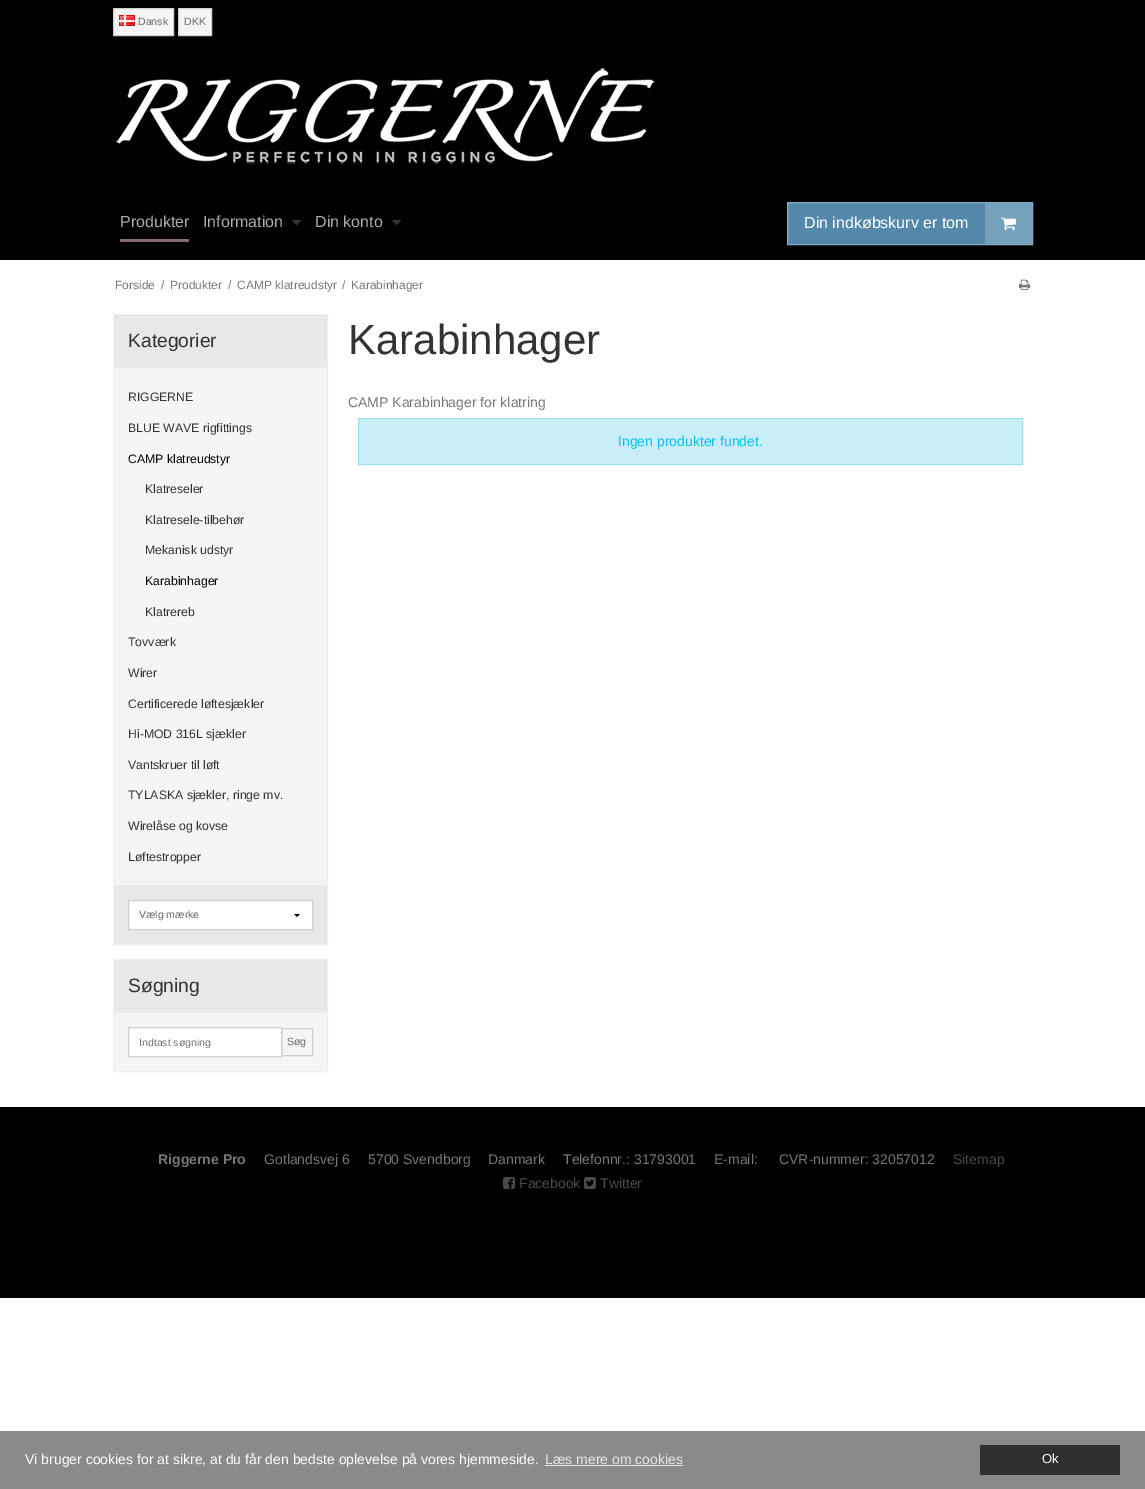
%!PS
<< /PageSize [1145 1489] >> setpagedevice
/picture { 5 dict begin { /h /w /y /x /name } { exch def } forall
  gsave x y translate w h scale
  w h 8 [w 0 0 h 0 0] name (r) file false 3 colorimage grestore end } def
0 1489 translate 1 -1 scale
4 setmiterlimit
1 setgray
0 0 1145 1489 rectfill
0 setgray
0 0 1145 260 rectfill
0.961 setgray
newpath 113.5 8.5 moveto 173.5 8.5 lineto 173.5 35.5 lineto 113.5 35.5 lineto closepath gsave fill grestore
0.812 setgray
stroke
(img1.rgb) 119 15 16 11 picture
/LiberationSans-Regular [10.5 0 0 -10.5 0 0] selectfont
0.424 setgray
138 25 moveto (Dansk) show
0.961 setgray
newpath 178.5 8.5 moveto 211.5 8.5 lineto 211.5 35.5 lineto 178.5 35.5 lineto closepath gsave fill grestore
0.812 setgray
stroke
0.424 setgray
184 25 moveto (DKK) show
(img2.rgb) 116 68 538 96 picture
0.529 0.416 0.416 setrgbcolor
120 239 69 3 rectfill
/LiberationSans-Regular [16 0 0 -16 0 0] selectfont
0.678 0.667 0.667 setrgbcolor
120 227 moveto (Produkter) show
203 227 moveto (Information) show
(img3.rgb) 292 220 9 5 picture
315 227 moveto (Din konto) show
(img3.rgb) 392 220 9 5 picture
0.325 0.533 0.667 setrgbcolor
788 203 197 41 rectfill
0.525 0.675 0.769 setrgbcolor
787.5 202.5 245 42 rectstroke
1 setgray
804 228 moveto (Din indkøbskurv er tom) show
0.459 0.627 0.733 setrgbcolor
985 203 47 41 rectfill
(img4.rgb) 1001 217 15 14 picture
/LiberationSans-Regular [12 0 0 -12 0 0] selectfont
0.467 setgray
115 289 moveto (Forside) show
161 289 moveto (/) show
170 289 moveto (Produkter) show
228 289 moveto (/) show
237 289 moveto (CAMP klatreudstyr) show
342 289 moveto (/) show
351 289 moveto (Karabinhager) show
(img5.rgb) 1019 279 12 11 picture
0.961 setgray
114 368 213 517 rectfill
0.933 setgray
113.5 314.5 214 630 rectstroke
0.91 setgray
114 315 213 52 rectfill
0.933 setgray
114 367 213 1 rectfill
/LiberationSans-Regular [19.25 0 0 -19.25 0 0] selectfont
0.2 setgray
128 347 moveto (Kategorier) show
/LiberationSans-Regular [12.25 0 0 -12.25 0 0] selectfont
128 401 moveto (RIGGERNE) show
128 432 moveto (BLUE WAVE rigfittings) show
0 setgray
128 463 moveto (CAMP klatreudstyr) show
0.2 setgray
145 493 moveto (Klatreseler) show
145 524 moveto (Klatresele-tilbehør) show
145 554 moveto (Mekanisk udstyr) show
0 setgray
145 585 moveto (Karabinhager) show
0.2 setgray
145 616 moveto (Klatrereb) show
128 646 moveto (Tovværk) show
128 677 moveto (Wirer) show
128 708 moveto (Certificerede løftesjækler) show
128 738 moveto (Hi-MOD 316L sjækler) show
128 769 moveto (Vantskruer til løft) show
128 799 moveto (TYLASKA sjækler, ringe mv.) show
128 830 moveto (Wirelåse og kovse) show
128 861 moveto (Løftestropper) show
0.91 setgray
114 886 213 58 rectfill
0.933 setgray
114 885 213 1 rectfill
1 setgray
129 901 183 28 rectfill
0 setgray
newpath 300 914 moveto 297 917 lineto 294 914 lineto closepath fill
0.812 setgray
128.5 900.5 184 29 rectstroke
/LiberationSans-Regular [10.5 0 0 -10.5 0 0] selectfont
0.396 0.404 0.392 setrgbcolor
139 918 moveto (Vælg mærke) show
0.961 setgray
114 1013 213 58 rectfill
0.933 setgray
113.5 959.5 214 112 rectstroke
0.91 setgray
114 960 213 52 rectfill
0.933 setgray
114 1012 213 1 rectfill
/LiberationSans-Regular [19.25 0 0 -19.25 0 0] selectfont
0.2 setgray
128 992 moveto (Søgning) show
1 setgray
newpath 128.5 1027.5 moveto 281.5 1027.5 lineto 281.5 1056.5 lineto 128.5 1056.5 lineto closepath gsave fill grestore
0.812 setgray
stroke
gsave
139 1036 131 12 rectclip
/LiberationSans-Regular [10.5 0 0 -10.5 0 0] selectfont
0.467 setgray
139 1046 moveto (Indtast søgning) show
grestore
281.5 1028.5 31 27 rectstroke
/LiberationSans-Regular [10.5 0 0 -10.5 0 0] selectfont
0.424 setgray
287 1045 moveto (Søg) show
/LiberationSans-Regular [42 0 0 -42 0 0] selectfont
0.2 setgray
348 354 moveto (Karabinhager) show
/LiberationSans-Regular [14 0 0 -14 0 0] selectfont
0.467 setgray
348 407 moveto (CAMP Karabinhager for klatring) show
0.792 0.933 0.969 setrgbcolor
newpath 358.5 418.5 moveto 1022.5 418.5 lineto 1022.5 464.5 lineto 358.5 464.5 lineto closepath gsave fill grestore
0.62 0.878 0.941 setrgbcolor
stroke
0.031 0.749 0.929 setrgbcolor
618 446 moveto (Ingen produkter fundet.) show
0 setgray
0 1107 1145 191 rectfill
/LiberationSans-Bold [14 0 0 -14 0 0] selectfont
0.467 setgray
158 1164 moveto (Riggerne Pro) show
/LiberationSans-Regular [14 0 0 -14 0 0] selectfont
264 1164 moveto (Gotlandsvej 6) show
368 1164 moveto (5700 Svendborg) show
488 1164 moveto (Danmark) show
563 1164 moveto (Telefonnr.: 31793001) show
714 1164 moveto (E-mail:) show
779 1164 moveto (CVR-nummer: 32057012) show
0.29 setgray
953 1164 moveto (Sitemap) show
(img6.rgb) 503 1177 12 12 picture
519 1188 moveto (Facebook) show
(img7.rgb) 584 1177 12 12 picture
600 1188 moveto (Twitter) show
0.541 setgray
0 1431 1145 58 rectfill
1 setgray
25 1464 moveto (Vi bruger cookies for at sikre, at du får den bedste oplevelse på vores hjemmeside.) show
0.91 setgray
545 1464 moveto (Læs mere om cookies) show
545 1465 138 1 rectfill
0.184 setgray
980 1445 140 30 rectfill
/LiberationSans-Regular [13 0 0 -13 0 0] selectfont
1 setgray
1042 1463 moveto (Ok) show
showpage
